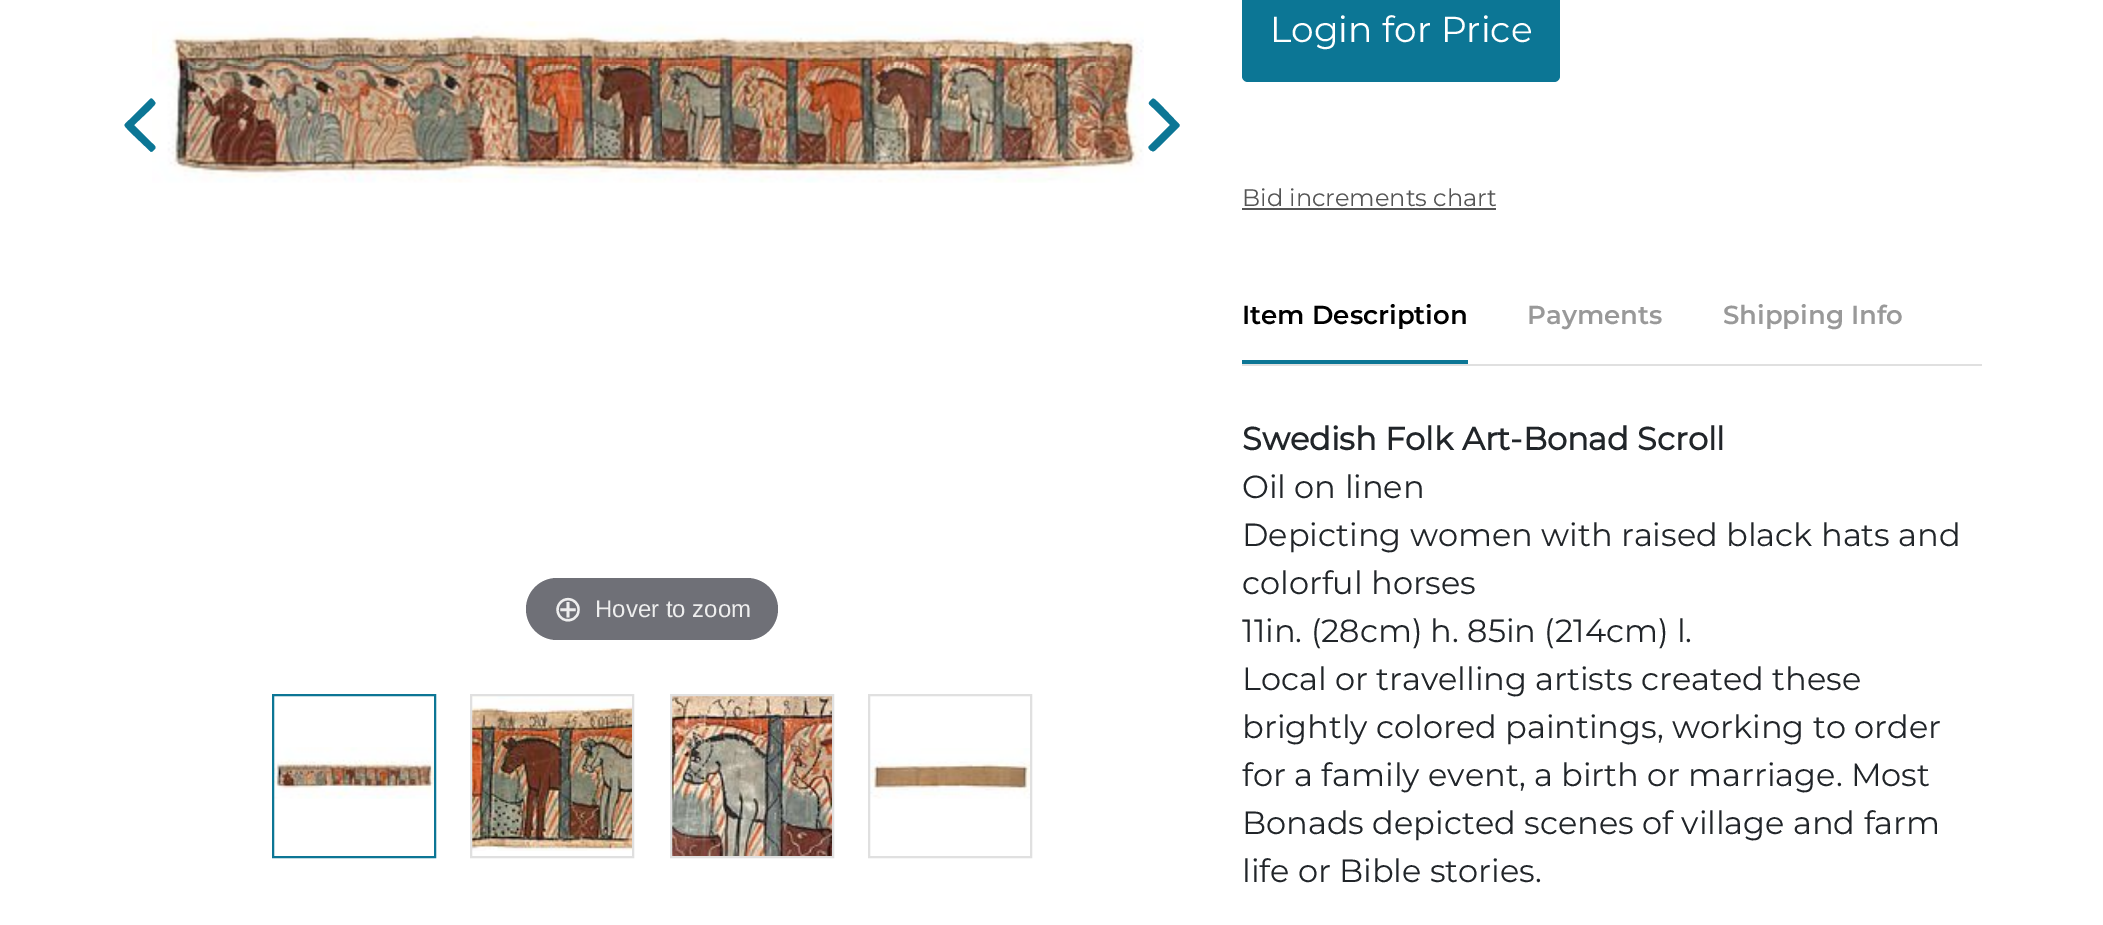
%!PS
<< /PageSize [2103 925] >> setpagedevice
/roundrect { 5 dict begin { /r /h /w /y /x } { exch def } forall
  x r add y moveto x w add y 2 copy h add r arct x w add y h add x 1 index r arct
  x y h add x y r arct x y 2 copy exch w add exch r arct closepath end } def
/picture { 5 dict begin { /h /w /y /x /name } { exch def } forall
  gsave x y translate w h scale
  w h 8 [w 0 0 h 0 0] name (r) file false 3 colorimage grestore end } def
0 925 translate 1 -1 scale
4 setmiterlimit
1 setgray
0 0 2103 925 rectfill
(img1.rgb) 152 21 992 162 picture
0.047 0.463 0.584 setrgbcolor
newpath 155 102 moveto 157 104 152 107 152 108 curveto 134 125 lineto 152 143 lineto 155 146 157 147 154 150 curveto 153 151 151 153 150 151 curveto 129 131 lineto 123 124 123 126 129 120 curveto 150 99 lineto 152 97 154 101 155 102 curveto closepath fill
newpath 1179 124 moveto 1182 126 1175 130 1175 131 curveto 1159 147 lineto 1158 147 1154 153 1152 151 curveto 1151 151 1147 148 1149 146 curveto 1170 125 lineto 1153 108 lineto 1149 104 1147 104 1151 100 curveto 1154 97 1154 99 1159 103 curveto closepath fill
0.435 0.439 0.467 setrgbcolor
526 578 252 62 31 roundrect fill
/DejaVuSans-Regular [36 0 0 -36 0 0] selectfont
0.933 setgray
553 621 moveto (⊕) show
/LiberationSans-Regular [24 0 0 -24 0 0] selectfont
595 617 moveto (Hover to zoom) show
(img2.rgb) 274 747 160 52 picture
0.047 0.463 0.584 setrgbcolor
2 setlinewidth
273 695 162 162 rectstroke
(img3.rgb) 472 696 160 155 picture
0.878 setgray
471 695 162 162 rectstroke
(img4.rgb) 672 696 160 160 picture
671 695 162 162 rectstroke
(img5.rgb) 870 748 160 51 picture
869 695 162 162 rectstroke
0.047 0.463 0.584 setrgbcolor
1242 -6 318 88 6 roundrect fill
/Montserrat-Regular [36 0 0 -36 0 0] selectfont
1 setgray
1270 42 moveto (Login for Price) show
/Montserrat-Regular [24 0 0 -24 0 0] selectfont
0.333 setgray
1242 206 moveto (Bid increments chart) show
1242 208 254 2 rectfill
0.878 setgray
1242 364 740 2 rectfill
/Montserrat-SemiBold [26 0 0 -26 0 0] selectfont
0 setgray
1242 324 moveto (Item Description) show
0.047 0.463 0.584 setrgbcolor
1242 360 226 4 rectfill
0.6 setgray
1527 324 moveto (Payments) show
1723 324 moveto (Shipping Info) show
/Montserrat-Bold [32 0 0 -32 0 0] selectfont
0.129 0.145 0.161 setrgbcolor
1242 450 moveto (Swedish Folk Art-Bonad Scroll) show
/Montserrat-Regular [32 0 0 -32 0 0] selectfont
1242 498 moveto (Oil on linen) show
1242 546 moveto (Depicting women with raised black hats and) show
1242 594 moveto (colorful horses) show
1242 642 moveto (11in. \(28cm\) h. 85in \(214cm\) l.) show
1242 690 moveto (Local or travelling artists created these) show
1242 738 moveto (brightly colored paintings, working to order) show
1242 786 moveto (for a family event, a birth or marriage. Most) show
1242 834 moveto (Bonads depicted scenes of village and farm) show
1242 882 moveto (life or Bible stories.) show
showpage
